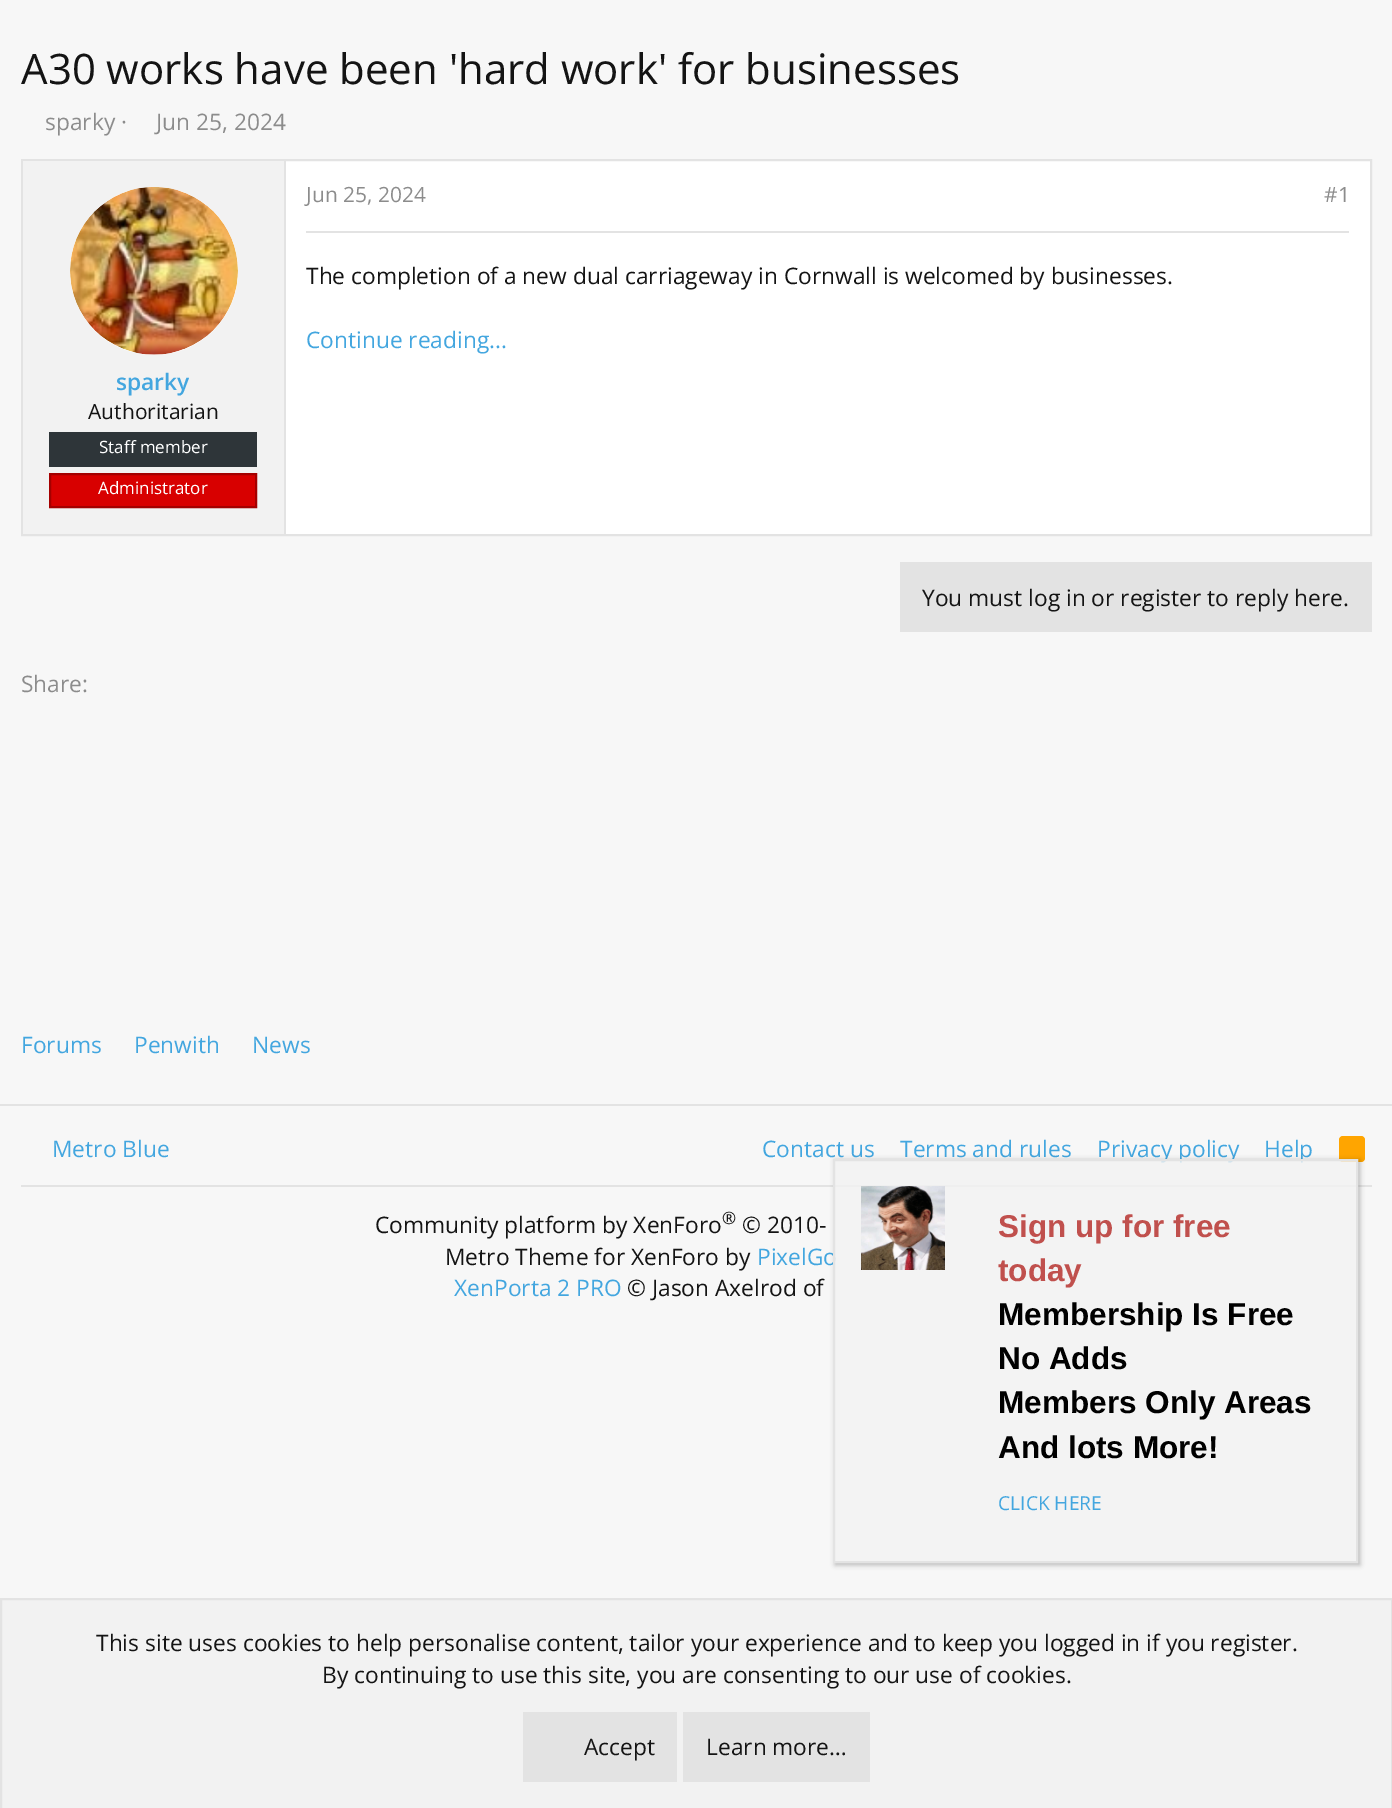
%!PS
<< /PageSize [1392 1808] /PageUsesTransparency true >> setpagedevice
/alpha { dup .setfillconstantalpha .setstrokeconstantalpha } def
/roundrect { 5 dict begin { /r /h /w /y /x } { exch def } forall
  x r add y moveto x w add y 2 copy h add r arct x w add y h add x 1 index r arct
  x y h add x y r arct x y 2 copy exch w add exch r arct closepath end } def
/shadow { 12 dict begin { /a /b /q /h /w /y /x } { exch def } forall gsave /was 0 def
  9 -2 -9 { dup b mul 4 div /e exch def 1 sub .425 mul 2.718 exch exp 1 add a .99 .min exch div /now exch def
    1 1 now sub 1 was sub div sub alpha /was now def
    w h .min e 2 mul add 0 gt { x e sub y e sub w e 2 mul add h e 2 mul add
      q e add b .6 mul add w h .min 2 div e add .min 0 .max roundrect fill } if } for grestore end } def
/picture { 5 dict begin { /h /w /y /x /name } { exch def } forall
  gsave x y translate w h scale
  w h 8 [w 0 0 h 0 0] name (r) file false 3 colorimage grestore end } def
0 .pushpdf14devicefilter
0 1808 translate 1 -1 scale
4 setmiterlimit
0.969 setgray
0 0 1392 1808 rectfill
/OpenSans-Regular [42 0 0 -42 0 0] selectfont
0.078 setgray
21 84 moveto (A30 works have been 'hard work' for businesses) show
/OpenSans-Regular [22.75 0 0 -22.75 0 0] selectfont
0.549 setgray
45 130 moveto (sparky ·) show
156 130 moveto (Jun 25, 2024) show
1 setgray
286 161 1084 373 rectfill
0.89 setgray
2 setlinewidth
22 160 1349 375 rectstroke
306 231 1043 2 rectfill
/OpenSans-Regular [21 0 0 -21 0 0] selectfont
0.549 setgray
306 202 moveto (Jun 25, 2024) show
1324 202 moveto (#1) show
/OpenSans-Regular [22.75 0 0 -22.75 0 0] selectfont
0.078 setgray
306 284 moveto (The completion of a new dual carriageway in Cornwall is welcomed by businesses.) show
0.263 0.651 0.875 setrgbcolor
306 348 moveto (Continue reading...) show
0.949 setgray
23 161 261 373 rectfill
0.89 setgray
284 161 2 373 rectfill
1 setgray
newpath 154 271 84 0 360 arc closepath fill
(img1.rgb) 70 187 168 168 picture
/OpenSans-SemiBold [22.75 0 0 -22.75 0 0] selectfont
0.263 0.651 0.875 setrgbcolor
116 390 moveto (sparky) show
/OpenSans-Regular [21 0 0 -21 0 0] selectfont
0.078 setgray
88 419 moveto (Authoritarian) show
0.18 0.208 0.224 setrgbcolor
49 432 208 35 rectfill
/OpenSans-Regular [17 0 0 -17 0 0] selectfont
1 setgray
99 453 moveto (Staff member) show
0.847 0 0 setrgbcolor
newpath 50 474 moveto 256 474 lineto 256 507 lineto 50 507 lineto closepath gsave fill grestore
0.647 0 0 setrgbcolor
stroke
1 setgray
98 494 moveto (Administrator) show
0.89 setgray
900 562 472 70 rectfill
/OpenSans-Regular [22.75 0 0 -22.75 0 0] selectfont
0.078 setgray
922 606 moveto (You must log in or register to reply here.) show
0.549 setgray
21 692 moveto (Share:) show
0.263 0.651 0.875 setrgbcolor
21 1053 moveto (Forums) show
134 1053 moveto (Penwith) show
252 1053 moveto (News) show
0.89 setgray
0 1104 1392 2 rectfill
0.263 0.651 0.875 setrgbcolor
52 1157 moveto (Metro Blue) show
762 1157 moveto (Contact us) show
900 1157 moveto (Terms and rules) show
1097 1157 moveto (Privacy policy) show
1264 1157 moveto (Help) show
1 0.647 0 setrgbcolor
1339 1136 26 26 4 roundrect fill
0.89 setgray
21 1185 1351 2 rectfill
0.078 setgray
375 1233 moveto (Community platform by XenForo) show
/OpenSans-Regular [17 0 0 -17 0 0] selectfont
722 1224 moveto (®) show
/OpenSans-Regular [22.75 0 0 -22.75 0 0] selectfont
742 1233 moveto (© 2010-) show
445 1265 moveto (Metro Theme for XenForo by) show
0.263 0.651 0.875 setrgbcolor
757 1265 moveto (PixelGo) show
454 1296 moveto (XenPorta 2 PRO) show
0.078 setgray
627 1296 moveto (© Jason Axelrod of) show
gsave
newpath 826 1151 moveto 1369 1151 lineto 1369 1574 lineto 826 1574 lineto closepath 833 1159 moveto 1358 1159 lineto 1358 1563 lineto 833 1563 lineto closepath eoclip newpath
0 setgray
835 1160 525 405 0 2.5 0.25 shadow
grestore
0.8 alpha
0.949 setgray
newpath 834 1160 moveto 1357 1160 lineto 1357 1562 lineto 834 1562 lineto closepath fill
1 alpha
0.89 setgray
newpath 834 1160 moveto 1357 1160 lineto 1357 1562 lineto 834 1562 lineto closepath stroke
(img2.rgb) 861 1186 84 84 picture
/LiberationSans-Bold [31.5 0 0 -31.5 0 0] selectfont
0.753 0.314 0.302 setrgbcolor
998 1237 moveto (Sign up for free) show
998 1281 moveto (today) show
0 setgray
998 1325 moveto (Membership Is Free) show
998 1369 moveto (No Adds) show
998 1413 moveto (Members Only Areas) show
998 1458 moveto (And lots More!) show
/OpenSans-Regular [19.25 0 0 -19.25 0 0] selectfont
0.263 0.651 0.875 setrgbcolor
998 1510 moveto (CLICK HERE) show
0.949 setgray
newpath 1 1599 moveto 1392 1599 lineto 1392 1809 lineto 1 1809 lineto closepath gsave fill grestore
0.89 setgray
stroke
/OpenSans-Regular [22.75 0 0 -22.75 0 0] selectfont
0.078 setgray
96 1651 moveto (This site uses cookies to help personalise content, tailor your experience and to keep you logged in if you register.) show
322 1683 moveto (By continuing to use this site, you are consenting to our use of cookies.) show
0.89 setgray
523 1712 154 70 rectfill
0.078 setgray
584 1755 moveto (Accept) show
0.89 setgray
683 1712 187 70 rectfill
0.078 setgray
706 1755 moveto (Learn more…) show
.poppdf14devicefilter showpage
